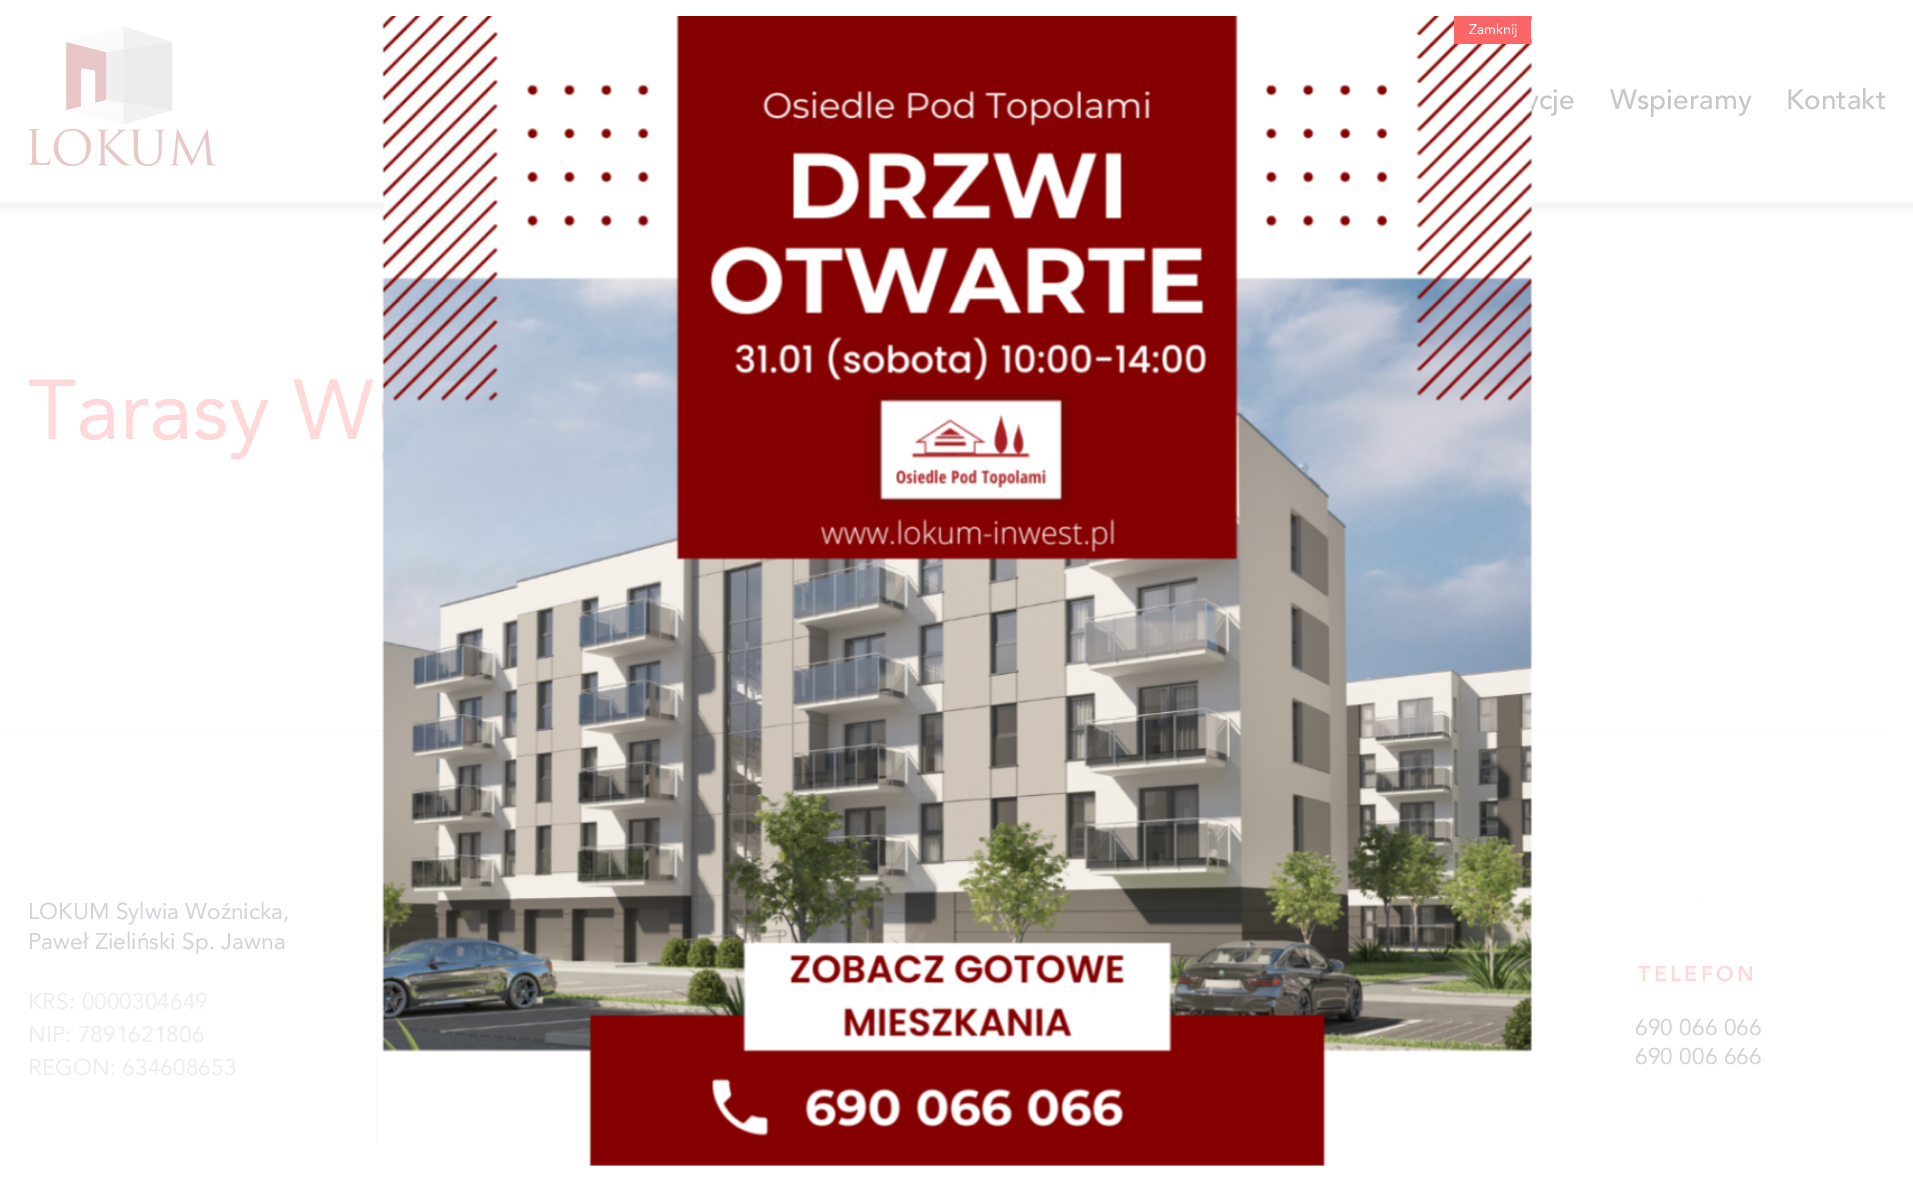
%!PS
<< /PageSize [1913 1180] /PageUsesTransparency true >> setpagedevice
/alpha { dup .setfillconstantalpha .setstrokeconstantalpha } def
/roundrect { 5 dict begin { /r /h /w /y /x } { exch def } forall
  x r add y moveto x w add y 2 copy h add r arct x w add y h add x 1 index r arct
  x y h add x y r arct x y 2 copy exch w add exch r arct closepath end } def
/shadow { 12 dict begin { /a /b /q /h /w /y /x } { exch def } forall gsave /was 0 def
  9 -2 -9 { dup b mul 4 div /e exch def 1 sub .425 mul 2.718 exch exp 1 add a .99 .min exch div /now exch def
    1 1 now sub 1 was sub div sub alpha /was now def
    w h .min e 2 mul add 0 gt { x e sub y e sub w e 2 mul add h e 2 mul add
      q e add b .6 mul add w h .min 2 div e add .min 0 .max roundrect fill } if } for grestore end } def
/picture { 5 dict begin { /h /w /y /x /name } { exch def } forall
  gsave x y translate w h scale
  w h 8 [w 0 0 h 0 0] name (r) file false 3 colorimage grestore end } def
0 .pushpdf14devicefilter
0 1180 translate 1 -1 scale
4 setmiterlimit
1 setgray
0 0 1913 1180 rectfill
gsave
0 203 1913 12 rectclip
0.749 setgray
0 5 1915 203 0 5 0.23 shadow
grestore
0.984 setgray
0 201 1913 2 rectfill
/Avenir-Medium [28 0 0 -28 0 0] selectfont
0.773 0.78 0.788 setrgbcolor
1525 109 moveto (ycje) show
0.984 setgray
0 730 1888 2 rectfill
(img1.rgb) 382 16 1150 1150 picture
0.992 0.4 0.404 setrgbcolor
1454 16 77 28 rectfill
/Avenir-Regular [14 0 0 -14 0 0] selectfont
1 setgray
1469 34 moveto (Zamknij) show
(img2.rgb) 28 26 189 140 picture
/Avenir-Medium [28 0 0 -28 0 0] selectfont
0.773 0.78 0.788 setrgbcolor
1610 109 moveto (Wspieramy) show
1786 109 moveto (Kontakt) show
/Avenir-Regular [84 0 0 -84 0 0] selectfont
1 0.851 0.851 setrgbcolor
28 439 moveto (Tarasy W) show
0.984 setgray
376 837 2 308 rectfill
/Avenir-Regular [22.75 0 0 -22.75 0 0] selectfont
0.824 0.827 0.843 setrgbcolor
28 919 moveto (LOKUM Sylwia Woźnicka,) show
28 949 moveto (Paweł Zieliński Sp. Jawna) show
0.933 0.933 0.941 setrgbcolor
28 1009 moveto (KRS: 0000304649) show
28 1042 moveto (NIP: 7891621806) show
28 1075 moveto (REGON: 634608653) show
(img3.rgb) 1698 898 2 2 picture
/Avenir-Black [21 0 0 -21 0 0] selectfont
1 0.851 0.851 setrgbcolor
1638 981 moveto 3.5 0 (TELEFON) ashow
/Avenir-Regular [22.75 0 0 -22.75 0 0] selectfont
0.824 0.827 0.843 setrgbcolor
1635 1035 moveto (690 066 066) show
1635 1064 moveto (690 006 666) show
.poppdf14devicefilter showpage
